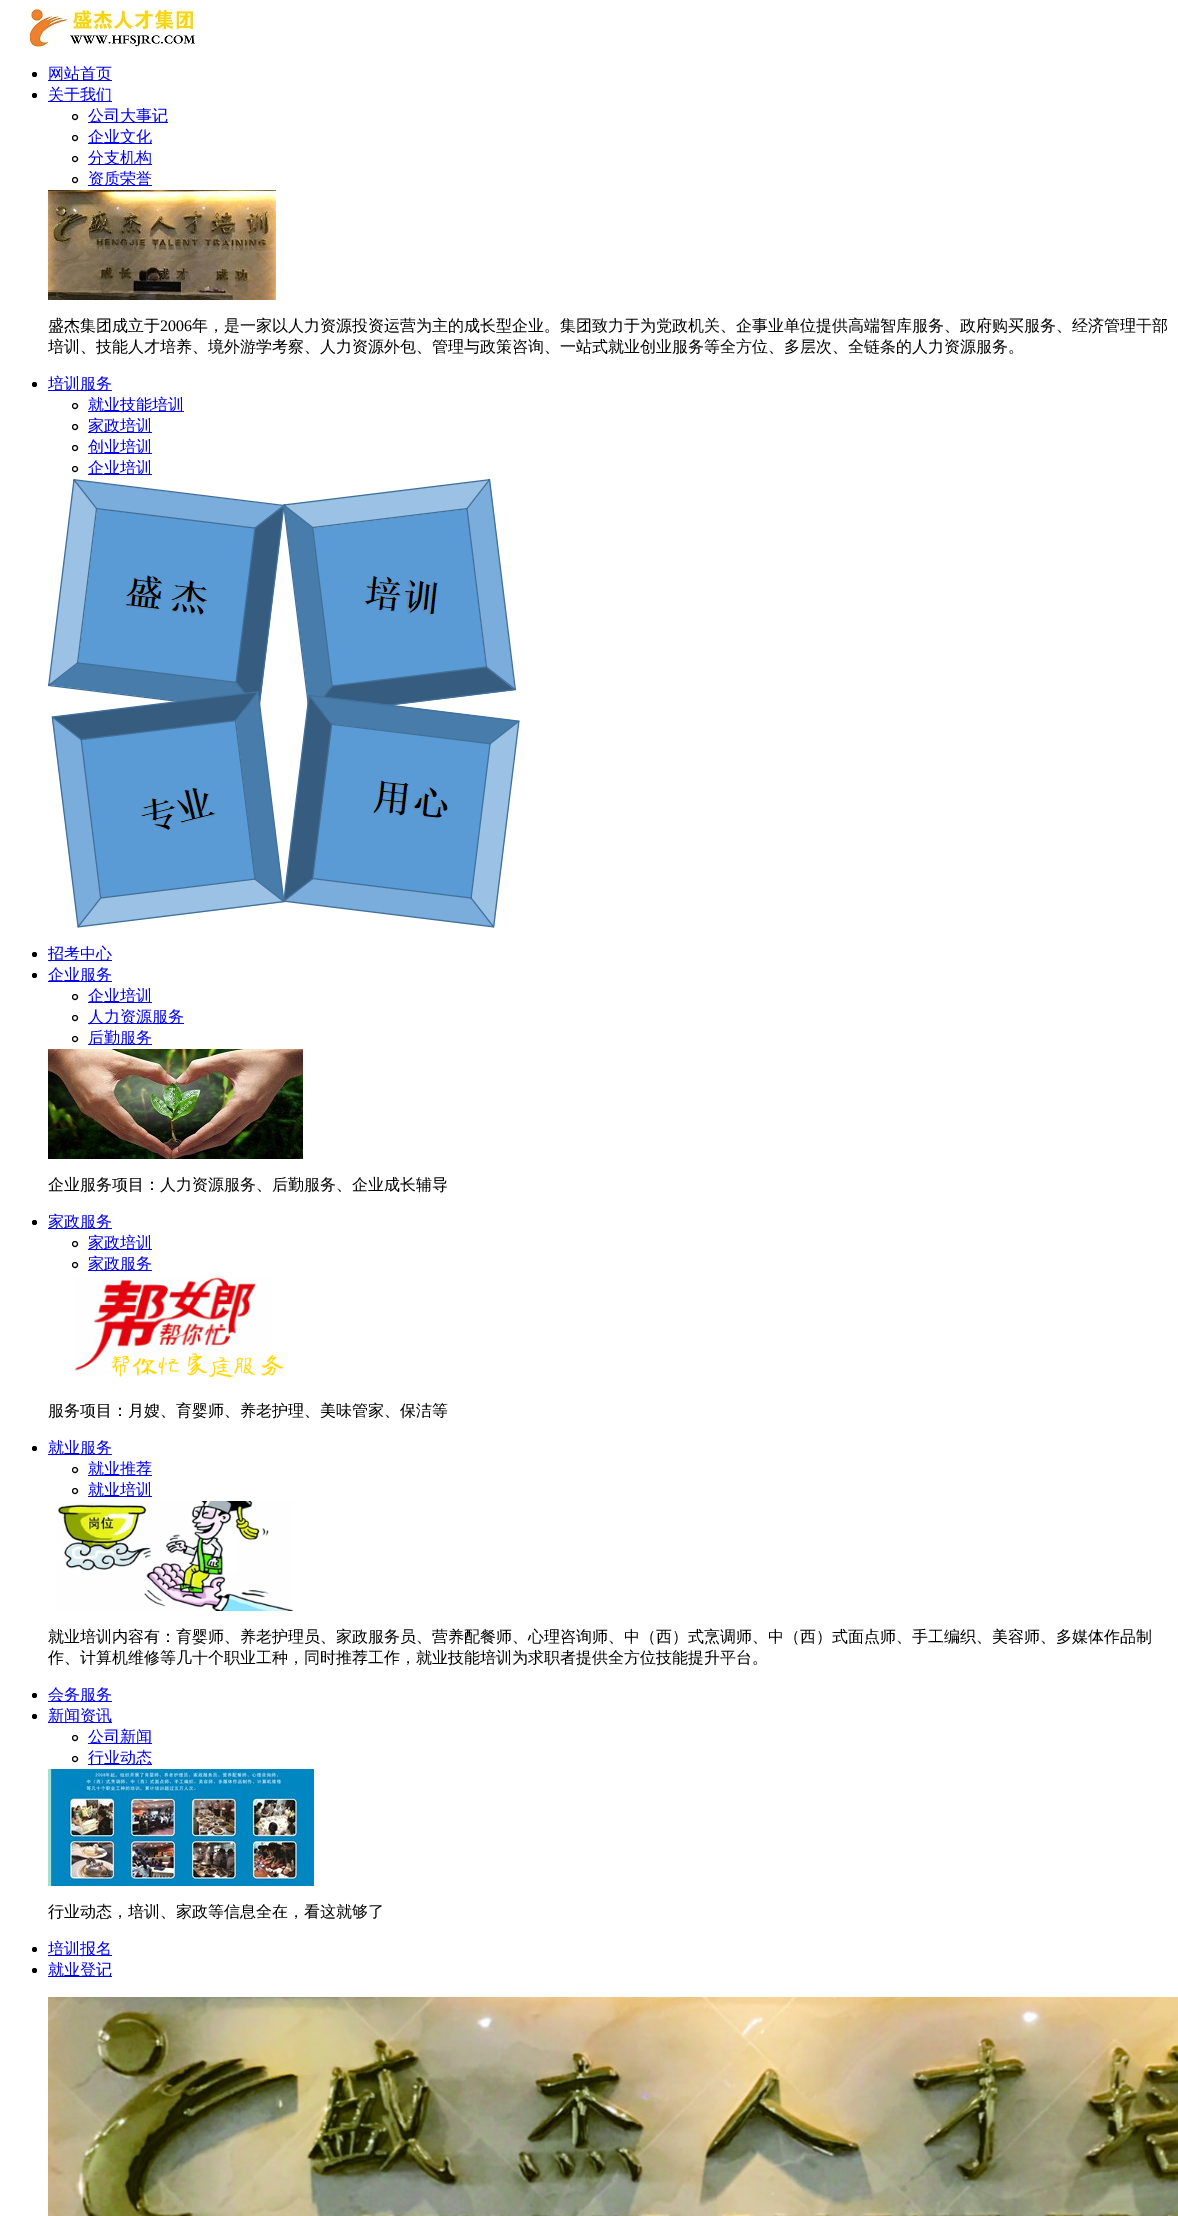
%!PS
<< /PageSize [1178 2216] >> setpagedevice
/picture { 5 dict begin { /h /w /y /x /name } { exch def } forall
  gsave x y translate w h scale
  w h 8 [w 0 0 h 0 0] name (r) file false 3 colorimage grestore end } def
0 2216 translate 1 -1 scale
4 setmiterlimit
1 setgray
0 0 1178 2216 rectfill
(img1.rgb) 24 8 176 40 picture
0 setgray
newpath 34.5 74.5 2.5 0 360 arc closepath fill
0 0 0.933 setrgbcolor
48 80 64 1 rectfill
/WenQuanYiZenHei-Medium [16 0 0 -16 0 0] selectfont
48 79 moveto (网站首页) show
0 setgray
newpath 34.5 95.5 2.5 0 360 arc closepath fill
0 0 0.933 setrgbcolor
48 101 64 1 rectfill
48 100 moveto (关于我们) show
0 setgray
newpath 75 117 2.5 0 360 arc closepath stroke
0 0 0.933 setrgbcolor
88 122 80 1 rectfill
88 121 moveto (公司大事记) show
0 setgray
newpath 75 138 2.5 0 360 arc closepath stroke
0 0 0.933 setrgbcolor
88 143 64 1 rectfill
88 142 moveto (企业文化) show
0 setgray
newpath 75 159 2.5 0 360 arc closepath stroke
0 0 0.933 setrgbcolor
88 164 64 1 rectfill
88 163 moveto (分支机构) show
0 setgray
newpath 75 180 2.5 0 360 arc closepath stroke
0 0 0.933 setrgbcolor
88 185 64 1 rectfill
88 184 moveto (资质荣誉) show
(img2.rgb) 48 190 228 110 picture
0 setgray
48 331 moveto (盛杰集团成立于) show
/LiberationSerif-Regular [16 0 0 -16 0 0] selectfont
160 331 moveto (2006) show
/WenQuanYiZenHei-Medium [16 0 0 -16 0 0] selectfont
192 331 moveto (年，是一家以人力资源投资运营为主的成长型企业。集团致力于为党政机关、企事业单位提供高端智库服务、政府购买服务、经济管理干部) show
48 352 moveto (培训、技能人才培养、境外游学考察、人力资源外包、管理与政策咨询、一站式就业创业服务等全方位、多层次、全链条的人力资源服务。) show
newpath 34.5 384.5 2.5 0 360 arc closepath fill
0 0 0.933 setrgbcolor
48 390 64 1 rectfill
48 389 moveto (培训服务) show
0 setgray
newpath 75 406 2.5 0 360 arc closepath stroke
0 0 0.933 setrgbcolor
88 411 96 1 rectfill
88 410 moveto (就业技能培训) show
0 setgray
newpath 75 427 2.5 0 360 arc closepath stroke
0 0 0.933 setrgbcolor
88 432 64 1 rectfill
88 431 moveto (家政培训) show
0 setgray
newpath 75 448 2.5 0 360 arc closepath stroke
0 0 0.933 setrgbcolor
88 453 64 1 rectfill
88 452 moveto (创业培训) show
0 setgray
newpath 75 469 2.5 0 360 arc closepath stroke
0 0 0.933 setrgbcolor
88 474 64 1 rectfill
88 473 moveto (企业培训) show
(img3.rgb) 48 479 472 449 picture
0 setgray
newpath 34.5 954.5 2.5 0 360 arc closepath fill
0 0 0.933 setrgbcolor
48 960 64 1 rectfill
48 959 moveto (招考中心) show
0 setgray
newpath 34.5 975.5 2.5 0 360 arc closepath fill
0 0 0.933 setrgbcolor
48 981 64 1 rectfill
48 980 moveto (企业服务) show
0 setgray
newpath 75 997 2.5 0 360 arc closepath stroke
0 0 0.933 setrgbcolor
88 1002 64 1 rectfill
88 1001 moveto (企业培训) show
0 setgray
newpath 75 1018 2.5 0 360 arc closepath stroke
0 0 0.933 setrgbcolor
88 1023 96 1 rectfill
88 1022 moveto (人力资源服务) show
0 setgray
newpath 75 1039 2.5 0 360 arc closepath stroke
0 0 0.933 setrgbcolor
88 1044 64 1 rectfill
88 1043 moveto (后勤服务) show
(img4.rgb) 48 1049 255 110 picture
0 setgray
48 1190 moveto (企业服务项目：人力资源服务、后勤服务、企业成长辅导) show
newpath 34.5 1222.5 2.5 0 360 arc closepath fill
0 0 0.933 setrgbcolor
48 1228 64 1 rectfill
48 1227 moveto (家政服务) show
0 setgray
newpath 75 1244 2.5 0 360 arc closepath stroke
0 0 0.933 setrgbcolor
88 1249 64 1 rectfill
88 1248 moveto (家政培训) show
0 setgray
newpath 75 1265 2.5 0 360 arc closepath stroke
0 0 0.933 setrgbcolor
88 1270 64 1 rectfill
88 1269 moveto (家政服务) show
(img5.rgb) 74 1276 210 102 picture
0 setgray
48 1416 moveto (服务项目：月嫂、育婴师、养老护理、美味管家、保洁等) show
newpath 34.5 1448.5 2.5 0 360 arc closepath fill
0 0 0.933 setrgbcolor
48 1454 64 1 rectfill
48 1453 moveto (就业服务) show
0 setgray
newpath 75 1470 2.5 0 360 arc closepath stroke
0 0 0.933 setrgbcolor
88 1475 64 1 rectfill
88 1474 moveto (就业推荐) show
0 setgray
newpath 75 1491 2.5 0 360 arc closepath stroke
0 0 0.933 setrgbcolor
88 1496 64 1 rectfill
88 1495 moveto (就业培训) show
(img6.rgb) 57 1501 236 110 picture
0 setgray
48 1642 moveto (就业培训内容有：育婴师、养老护理员、家政服务员、营养配餐师、心理咨询师、中（西）式烹调师、中（西）式面点师、手工编织、美容师、多媒体作品制) show
48 1663 moveto (作、计算机维修等几十个职业工种，同时推荐工作，就业技能培训为求职者提供全方位技能提升平台。) show
newpath 34.5 1695.5 2.5 0 360 arc closepath fill
0 0 0.933 setrgbcolor
48 1701 64 1 rectfill
48 1700 moveto (会务服务) show
0 setgray
newpath 34.5 1716.5 2.5 0 360 arc closepath fill
0 0 0.933 setrgbcolor
48 1722 64 1 rectfill
48 1721 moveto (新闻资讯) show
0 setgray
newpath 75 1738 2.5 0 360 arc closepath stroke
0 0 0.933 setrgbcolor
88 1743 64 1 rectfill
88 1742 moveto (公司新闻) show
0 setgray
newpath 75 1759 2.5 0 360 arc closepath stroke
0 0 0.933 setrgbcolor
88 1764 64 1 rectfill
88 1763 moveto (行业动态) show
(img7.rgb) 48 1769 266 117 picture
0 setgray
48 1917 moveto (行业动态，培训、家政等信息全在，看这就够了) show
newpath 34.5 1949.5 2.5 0 360 arc closepath fill
0 0 0.933 setrgbcolor
48 1955 64 1 rectfill
48 1954 moveto (培训报名) show
0 setgray
newpath 34.5 1970.5 2.5 0 360 arc closepath fill
0 0 0.933 setrgbcolor
48 1976 64 1 rectfill
48 1975 moveto (就业登记) show
(img8.rgb) 48 1997 1130 219 picture
showpage
